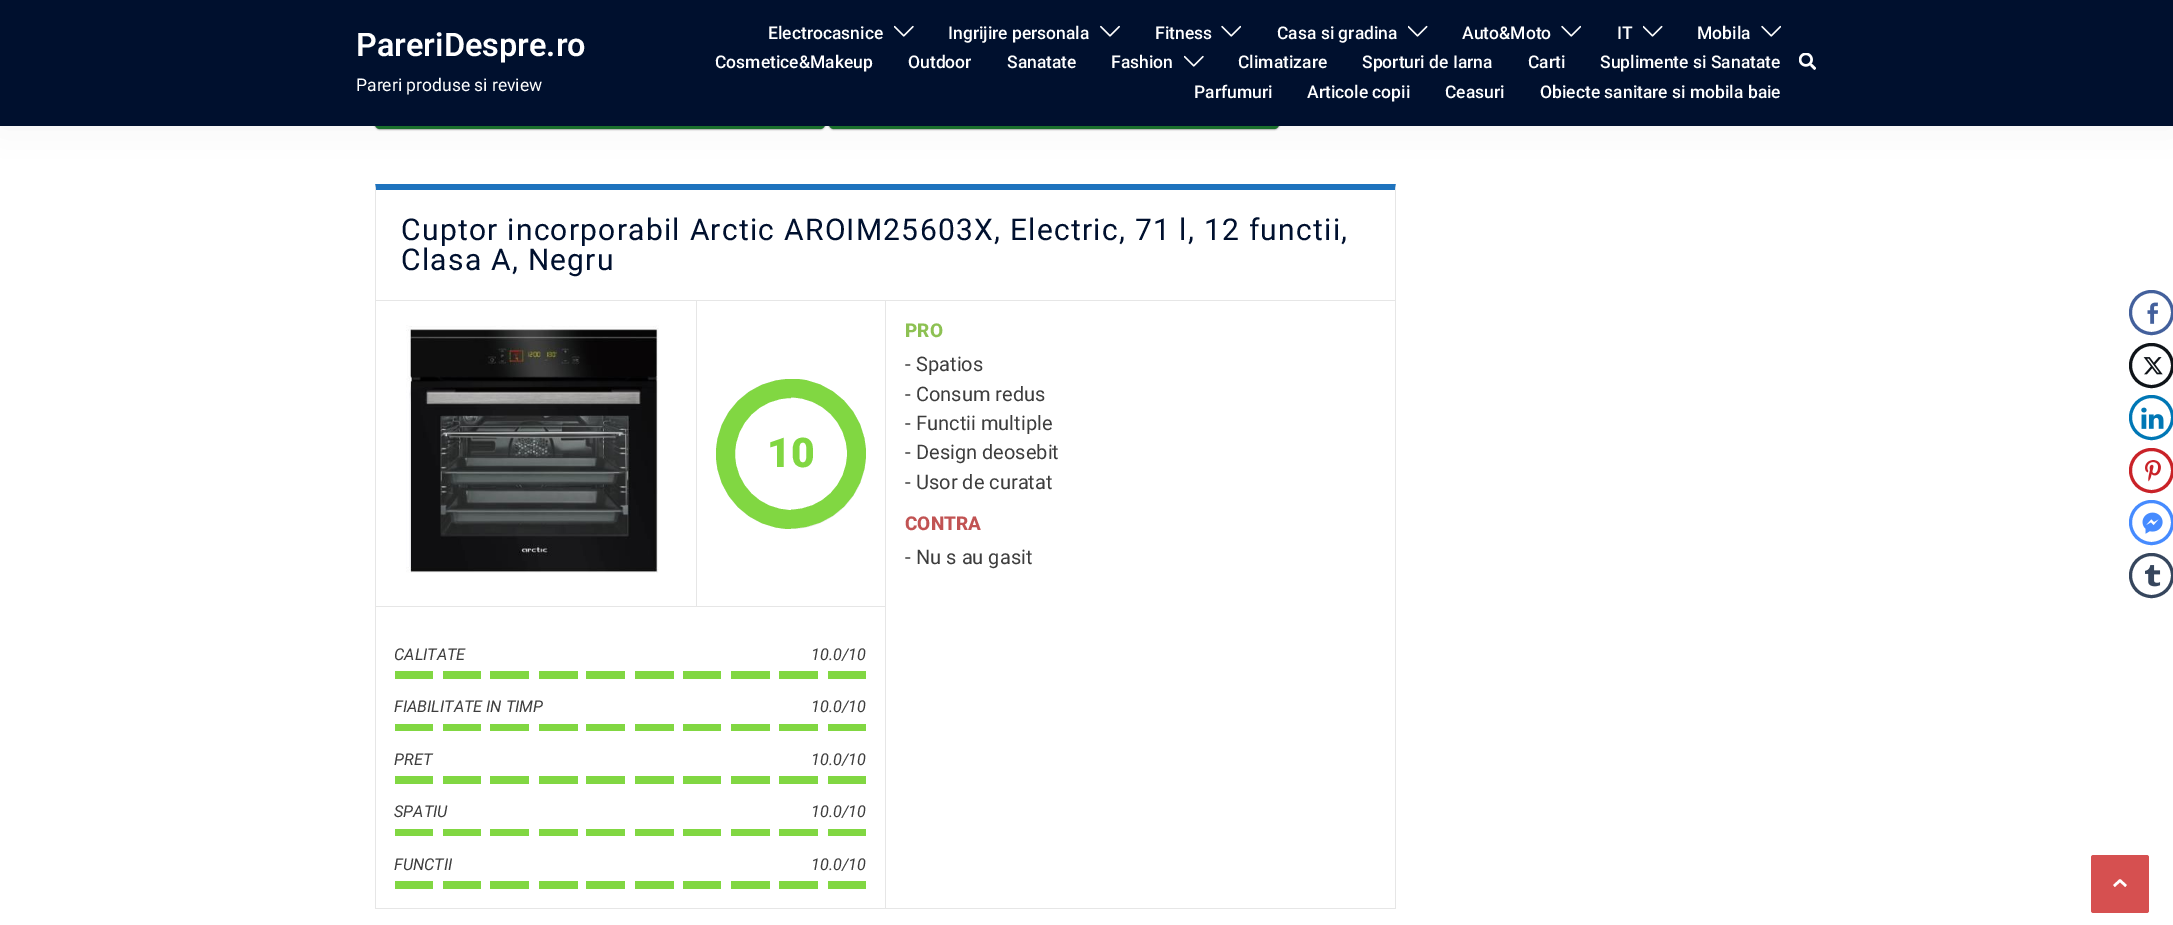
%!PS
<< /PageSize [2173 925] /PageUsesTransparency true >> setpagedevice
/alpha { dup .setfillconstantalpha .setstrokeconstantalpha } def
/roundrect { 5 dict begin { /r /h /w /y /x } { exch def } forall
  x r add y moveto x w add y 2 copy h add r arct x w add y h add x 1 index r arct
  x y h add x y r arct x y 2 copy exch w add exch r arct closepath end } def
/shadow { 12 dict begin { /a /b /q /h /w /y /x } { exch def } forall gsave /was 0 def
  9 -2 -9 { dup b mul 4 div /e exch def 1 sub .425 mul 2.718 exch exp 1 add a .99 .min exch div /now exch def
    1 1 now sub 1 was sub div sub alpha /was now def
    w h .min e 2 mul add 0 gt { x e sub y e sub w e 2 mul add h e 2 mul add
      q e add b .6 mul add w h .min 2 div e add .min 0 .max roundrect fill } if } for grestore end } def
/picture { 5 dict begin { /h /w /y /x /name } { exch def } forall
  gsave x y translate w h scale
  w h 8 [w 0 0 h 0 0] name (r) file false 3 colorimage grestore end } def
0 .pushpdf14devicefilter
0 925 translate 1 -1 scale
4 setmiterlimit
1 setgray
0 0 2173 925 rectfill
0.2 setgray
375 79 450 50 5 1 1 shadow
0.102 0.447 0.176 setrgbcolor
375 79 450 50 5 roundrect fill
0.2 setgray
829 79 450 50 5 1 1 shadow
0.102 0.447 0.176 setrgbcolor
829 79 450 50 5 roundrect fill
0 setgray
0 0 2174 126 0 19 0.05 shadow
0 0.063 0.18 setrgbcolor
0 0 2173 126 rectfill
/Roboto-SemiBold [32.5 0 0 -32.5 0 0] selectfont
1 setgray
356 56 moveto (PareriDespre.ro) show
/Roboto-Regular [17.5 0 0 -17.5 0 0] selectfont
356 91 moveto (Pareri produse si review) show
/Roboto-Medium [17.5 0 0 -17.5 0 0] selectfont
768 39 moveto (Electrocasnice) show
(img1.rgb) 894 25 20 12 picture
948 39 moveto (Ingrijire personala) show
(img2.rgb) 1100 25 20 12 picture
1155 39 moveto (Fitness) show
(img3.rgb) 1221 25 20 12 picture
1277 39 moveto (Casa si gradina) show
(img4.rgb) 1408 25 20 12 picture
1462 39 moveto (Auto&Moto) show
(img3.rgb) 1561 25 20 12 picture
1617 39 moveto (IT) show
(img4.rgb) 1643 25 20 12 picture
1697 39 moveto (Mobila) show
(img3.rgb) 1761 25 20 12 picture
715 68 moveto (Cosmetice&Makeup) show
908 68 moveto (Outdoor) show
1007 68 moveto (Sanatate) show
1111 68 moveto (Fashion) show
(img1.rgb) 1184 55 20 12 picture
1238 68 moveto (Climatizare) show
1362 68 moveto (Sporturi de Iarna) show
1528 68 moveto (Carti) show
1600 68 moveto (Suplimente si Sanatate) show
1194 98 moveto (Parfumuri) show
1307 98 moveto (Articole copii) show
1445 98 moveto (Ceasuri) show
1540 98 moveto (Obiecte sanitare si mobila baie) show
(img5.rgb) 1799 53 17 17 picture
0.118 0.451 0.745 setrgbcolor
newpath 375 184 moveto 1396 184 lineto 1395 190 lineto 376 190 lineto closepath fill
0.902 setgray
newpath 1396 184 moveto 1396 300 lineto 1395 300 lineto 1395 190 lineto closepath fill
newpath 375 300 moveto 375 184 lineto 376 190 lineto 376 300 lineto closepath fill
/Roboto-Regular [30 0 0 -30 0 0] selectfont
0 0.063 0.18 setrgbcolor
401 240 moveto 1.25 0 (Cuptor incorporabil Arctic AROIM25603X, Electric, 71 l, 12 functii,) ashow
401 270 moveto 1.25 0 (Clasa A, Negru) ashow
0.902 setgray
375 300 1021 1 rectfill
375 908 1021 1 rectfill
375 300 1 609 rectfill
885 301 1 607 rectfill
696 301 1 305 rectfill
(img6.rgb) 406 325 253 248 picture
0.922 setgray
newpath 791 454 75 0 360 arc closepath fill
1 setgray
735 398 113 112 56 roundrect fill
gsave
716 379 75 150 rectclip
0.506 0.843 0.259 setrgbcolor
19 setlinewidth
newpath 791 454 65.5 0 360 arc closepath stroke
grestore
gsave
791 379 75 150 rectclip
0.506 0.843 0.259 setrgbcolor
18.8 setlinewidth
newpath 791 519 moveto 754.5 519 725.5 490 725.5 453.5 curveto 725.5 417.5 754.5 388 791 388 curveto 827 388 856.5 417.5 856.5 453.5 curveto 856.5 490 827 519 791 519 curveto closepath stroke
grestore
/Roboto-Black [41 0 0 -41 0 0] selectfont
0.506 0.843 0.259 setrgbcolor
767 467 moveto (10) show
0.902 setgray
376 606 509 1 rectfill
/Roboto-Italic [16.25 0 0 -16.25 0 0] selectfont
0.239 setgray
394 660 moveto (CALITATE) show
811 660 moveto (10.0/10) show
0.506 0.843 0.259 setrgbcolor
395 671 38 8 rectfill
443 671 38 8 rectfill
490 671 39 8 rectfill
539 671 39 8 rectfill
586 671 39 8 rectfill
635 671 39 8 rectfill
683 671 38 8 rectfill
731 671 39 8 rectfill
779 671 39 8 rectfill
828 671 38 8 rectfill
0.239 setgray
394 712 moveto (FIABILITATE IN TIMP) show
811 712 moveto (10.0/10) show
0.506 0.843 0.259 setrgbcolor
395 724 38 7 rectfill
443 724 38 7 rectfill
490 724 39 7 rectfill
539 724 39 7 rectfill
586 724 39 7 rectfill
635 724 39 7 rectfill
683 724 38 7 rectfill
731 724 39 7 rectfill
779 724 39 7 rectfill
828 724 38 7 rectfill
0.239 setgray
394 765 moveto (PRET) show
811 765 moveto (10.0/10) show
0.506 0.843 0.259 setrgbcolor
395 776 38 8 rectfill
443 776 38 8 rectfill
490 776 39 8 rectfill
539 776 39 8 rectfill
586 776 39 8 rectfill
635 776 39 8 rectfill
683 776 38 8 rectfill
731 776 39 8 rectfill
779 776 39 8 rectfill
828 776 38 8 rectfill
0.239 setgray
394 817 moveto (SPATIU) show
811 817 moveto (10.0/10) show
0.506 0.843 0.259 setrgbcolor
395 829 38 7 rectfill
443 829 38 7 rectfill
490 829 39 7 rectfill
539 829 39 7 rectfill
586 829 39 7 rectfill
635 829 39 7 rectfill
683 829 38 7 rectfill
731 829 39 7 rectfill
779 829 39 7 rectfill
828 829 38 7 rectfill
0.239 setgray
394 870 moveto (FUNCTII) show
811 870 moveto (10.0/10) show
0.506 0.843 0.259 setrgbcolor
395 881 38 8 rectfill
443 881 38 8 rectfill
490 881 39 8 rectfill
539 881 39 8 rectfill
586 881 39 8 rectfill
635 881 39 8 rectfill
683 881 38 8 rectfill
731 881 39 8 rectfill
779 881 39 8 rectfill
828 881 38 8 rectfill
0.902 setgray
1395 301 1 607 rectfill
/Roboto-ExtraBold [19 0 0 -19 0 0] selectfont
0.553 0.757 0.325 setrgbcolor
905 337 moveto (PRO) show
/Roboto-Regular [20 0 0 -20 0 0] selectfont
0.239 setgray
905 371 moveto (-) show
916 371 moveto (Spatios) show
905 401 moveto (-) show
916 401 moveto (Consum redus) show
905 430 moveto (-) show
916 430 moveto (Functii multiple) show
905 459 moveto (-) show
916 459 moveto (Design deosebit) show
905 489 moveto (-) show
916 489 moveto (Usor de curatat) show
/Roboto-ExtraBold [19 0 0 -19 0 0] selectfont
0.757 0.325 0.325 setrgbcolor
905 530 moveto (CONTRA) show
/Roboto-Regular [20 0 0 -20 0 0] selectfont
0.239 setgray
905 564 moveto (-) show
916 564 moveto (Nu s au gasit) show
0.263 0.376 0.612 setrgbcolor
3 setlinewidth
newpath 2151.5 312.5 21 0 360 arc closepath stroke
(img7.rgb) 2147 302 11 22 picture
0.059 0.078 0.098 setrgbcolor
newpath 2151.5 365.5 21 0 360 arc closepath stroke
(img8.rgb) 2143 357 20 18 picture
0 0.467 0.71 setrgbcolor
newpath 2151.5 417.5 21 0 360 arc closepath stroke
(img9.rgb) 2141 407 23 22 picture
0.788 0.133 0.157 setrgbcolor
newpath 2151.5 470.5 21 0 360 arc closepath stroke
(img10.rgb) 2145 460 16 22 picture
0.275 0.545 1 setrgbcolor
newpath 2151.5 522.5 21 0 360 arc closepath stroke
(img11.rgb) 2142 512 21 22 picture
0.212 0.275 0.365 setrgbcolor
newpath 2151.5 575.5 21 0 360 arc closepath stroke
(img12.rgb) 2145 565 16 22 picture
0.839 0.314 0.314 setrgbcolor
2091 855 58 58 2.5 roundrect fill
1 setgray
2.5 setlinewidth
1 setlinejoin
newpath 2114 886 moveto 2120 880.5 lineto 2126 886 lineto stroke
.poppdf14devicefilter showpage
